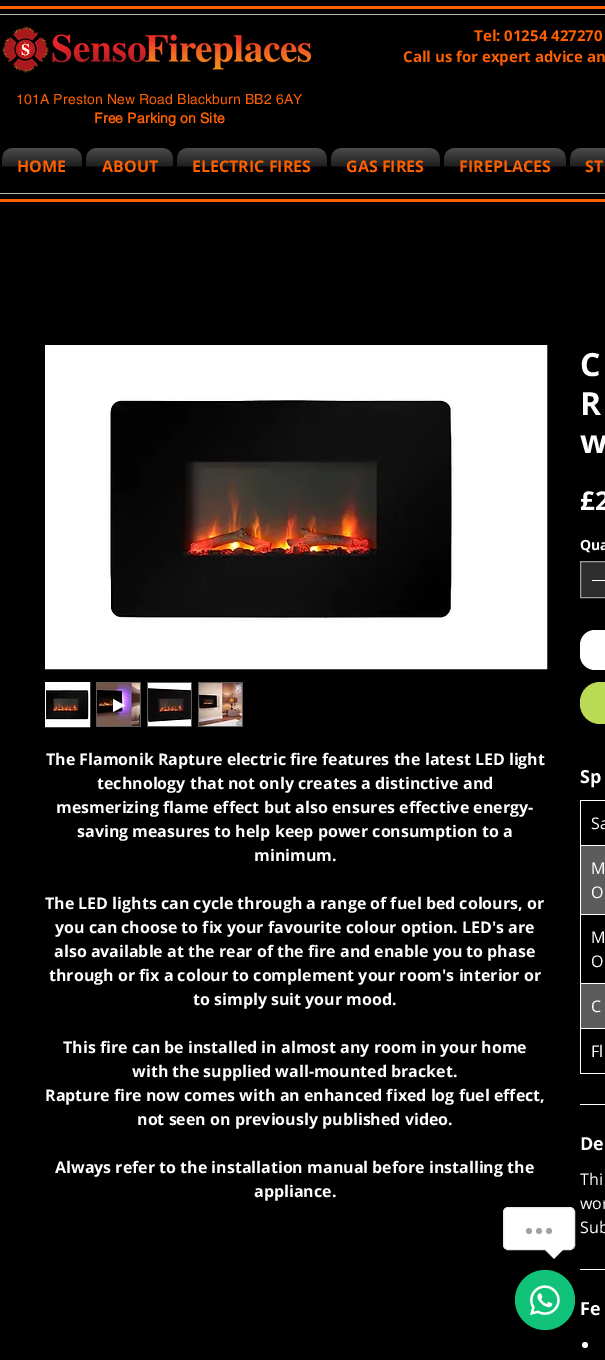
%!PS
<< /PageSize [605 1360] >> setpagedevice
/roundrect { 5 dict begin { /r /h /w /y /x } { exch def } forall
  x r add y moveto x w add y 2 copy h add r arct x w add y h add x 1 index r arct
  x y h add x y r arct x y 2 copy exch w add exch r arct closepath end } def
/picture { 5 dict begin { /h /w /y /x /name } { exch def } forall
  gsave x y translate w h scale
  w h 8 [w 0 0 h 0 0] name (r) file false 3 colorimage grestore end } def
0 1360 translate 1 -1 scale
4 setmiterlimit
0 setgray
0 0 605 1360 rectfill
0.988 0.376 0 setrgbcolor
0 6 605 3 rectfill
0 199 605 3 rectfill
0.725 setgray
0 14 605 1 rectfill
0 193 605 1 rectfill
(img1.rgb) 2 26 309 47 picture
/OpenSans-Bold [15 0 0 -15 0 0] selectfont
0.988 0.376 0 setrgbcolor
474 41 moveto (Tel: 01254 427270) show
403 62 moveto (Call us for expert advice an) show
/helvetica-Regular [14 0 0 -14 0 0] selectfont
16 104 moveto 0.15 0 (101A Preston New Road Blackburn BB2 6AY) ashow
/helvetica-Bold [14 0 0 -14 0 0] selectfont
94 123 moveto 0.15 0 (Free Parking on Site) ashow
(img2.rgb) 2 148 80 19 picture
/OpenSans-Bold [16 0 0 -16 0 0] selectfont
17 172 moveto (HOME) show
(img3.rgb) 86 148 87 19 picture
102 172 moveto (ABOUT) show
(img4.rgb) 177 148 150 19 picture
192 172 moveto (ELECTRIC FIRES) show
(img5.rgb) 331 148 109 19 picture
346 172 moveto (GAS FIRES) show
(img6.rgb) 444 148 122 19 picture
459 172 moveto (FIREPLACES) show
(img7.rgb) 570 148 35 19 picture
585 172 moveto (ST) show
1 setgray
45.5 345.5 501 323 rectstroke
(img8.rgb) 46 346 500 322 picture
45.5 682.5 44 44 rectstroke
(img9.rgb) 46 683 43 43 picture
0.361 setgray
96 682 45 45 rectfill
(img10.rgb) 97 683 43 43 picture
1 setgray
newpath 113 699 moveto 113 712 lineto 125 705.5 lineto closepath fill
0.361 setgray
147 682 45 45 rectfill
(img11.rgb) 148 683 43 43 picture
198 682 45 45 rectfill
(img12.rgb) 199 683 43 43 picture
1 setgray
46 765 moveto (The Flamonik Rapture electric fire features the latest LED light) show
97 789 moveto (technology that not only creates a distinctive and) show
56 813 moveto (mesmerizing flame effect but also ensures effective energy-) show
77 837 moveto (saving measures to help keep power consumption to a) show
254 861 moveto (minimum.) show
45 909 moveto (The LED lights can cycle through a range of fuel bed colours, or) show
55 933 moveto (you can choose to fix your favourite colour option. LED's are) show
54 957 moveto (also available at the rear of the fire and enable you to phase) show
49 981 moveto (through or fix a colour to complement your room's interior or) show
193 1005 moveto (to simply suit your mood.) show
63 1053 moveto (This fire can be installed in almost any room in your home) show
132 1077 moveto (with the supplied wall-mounted bracket.) show
45 1101 moveto (Rapture fire now comes with an enhanced fixed log fuel effect,) show
137 1125 moveto (not seen on previously published video.) show
55 1173 moveto (Always refer to the installation manual before installing the) show
254 1197 moveto (appliance.) show
/OpenSans-Bold [32 0 0 -32 0 0] selectfont
580 376 moveto (C) show
580 415 moveto (R) show
580 453 moveto (w) show
/OpenSans-Bold [26 0 0 -26 0 0] selectfont
580 510 moveto (£2) show
/OpenSans-Bold [14 0 0 -14 0 0] selectfont
580 550 moveto (Qua) show
0.176 setgray
newpath 580.5 561.5 moveto 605.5 561.5 lineto 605.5 597.5 lineto 580.5 597.5 lineto closepath gsave fill grestore
0.616 setgray
stroke
1 setgray
592 580 13 1 rectfill
580 630 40 40 15 roundrect fill
0.729 0.855 0.333 setrgbcolor
580 682 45 42 20 roundrect fill
1 setgray
580 1104 25 1 rectfill
/OpenSans-Bold [18 0 0 -18 0 0] selectfont
580 783 moveto (Sp) show
0.361 setgray
581 846 24 182 rectfill
1 setgray
580 800 25 1 rectfill
580 845 25 1 rectfill
580 914 25 1 rectfill
580 983 25 1 rectfill
580 1028 25 1 rectfill
580 1073 25 1 rectfill
580 1028 1 46 rectfill
580 983 1 46 rectfill
580 914 1 70 rectfill
580 845 1 70 rectfill
580 800 1 46 rectfill
/OpenSans-Regular [16 0 0 -16 0 0] selectfont
591 829 moveto (Sa) show
591 874 moveto (M) show
591 898 moveto (O) show
0 setgray
581 915 24 68 rectfill
1 setgray
591 943 moveto (M) show
591 967 moveto (O) show
591 1012 moveto (C) show
591 1057 moveto (Fl) show
580 1269 25 1 rectfill
/OpenSans-Bold [18 0 0 -18 0 0] selectfont
580 1150 moveto (De) show
/OpenSans-Regular [16 0 0 -16 0 0] selectfont
580 1185 moveto (Thi) show
580 1209 moveto (wor) show
580 1233 moveto (Sub) show
/OpenSans-Bold [18 0 0 -18 0 0] selectfont
580 1315 moveto (Fe) show
newpath 585 1345 3 0 360 arc closepath fill
503.5 1207.5 71 42 4.5 roundrect gsave fill grestore
0.914 setgray
stroke
0.624 0.643 0.659 setrgbcolor
newpath 529 1231 3 0 360 arc closepath fill
newpath 539 1231 3 0 360 arc closepath fill
newpath 549 1231 3 0 360 arc closepath fill
0.914 setgray
newpath 544 1249 moveto 564 1249 lineto 554 1259 lineto closepath fill
1 setgray
newpath 545 1249 moveto 563 1249 lineto 554 1258 lineto closepath fill
0.063 0.765 0.475 setrgbcolor
newpath 545 1300 30 0 360 arc closepath fill
(img13.rgb) 530 1285 30 31 picture
showpage
